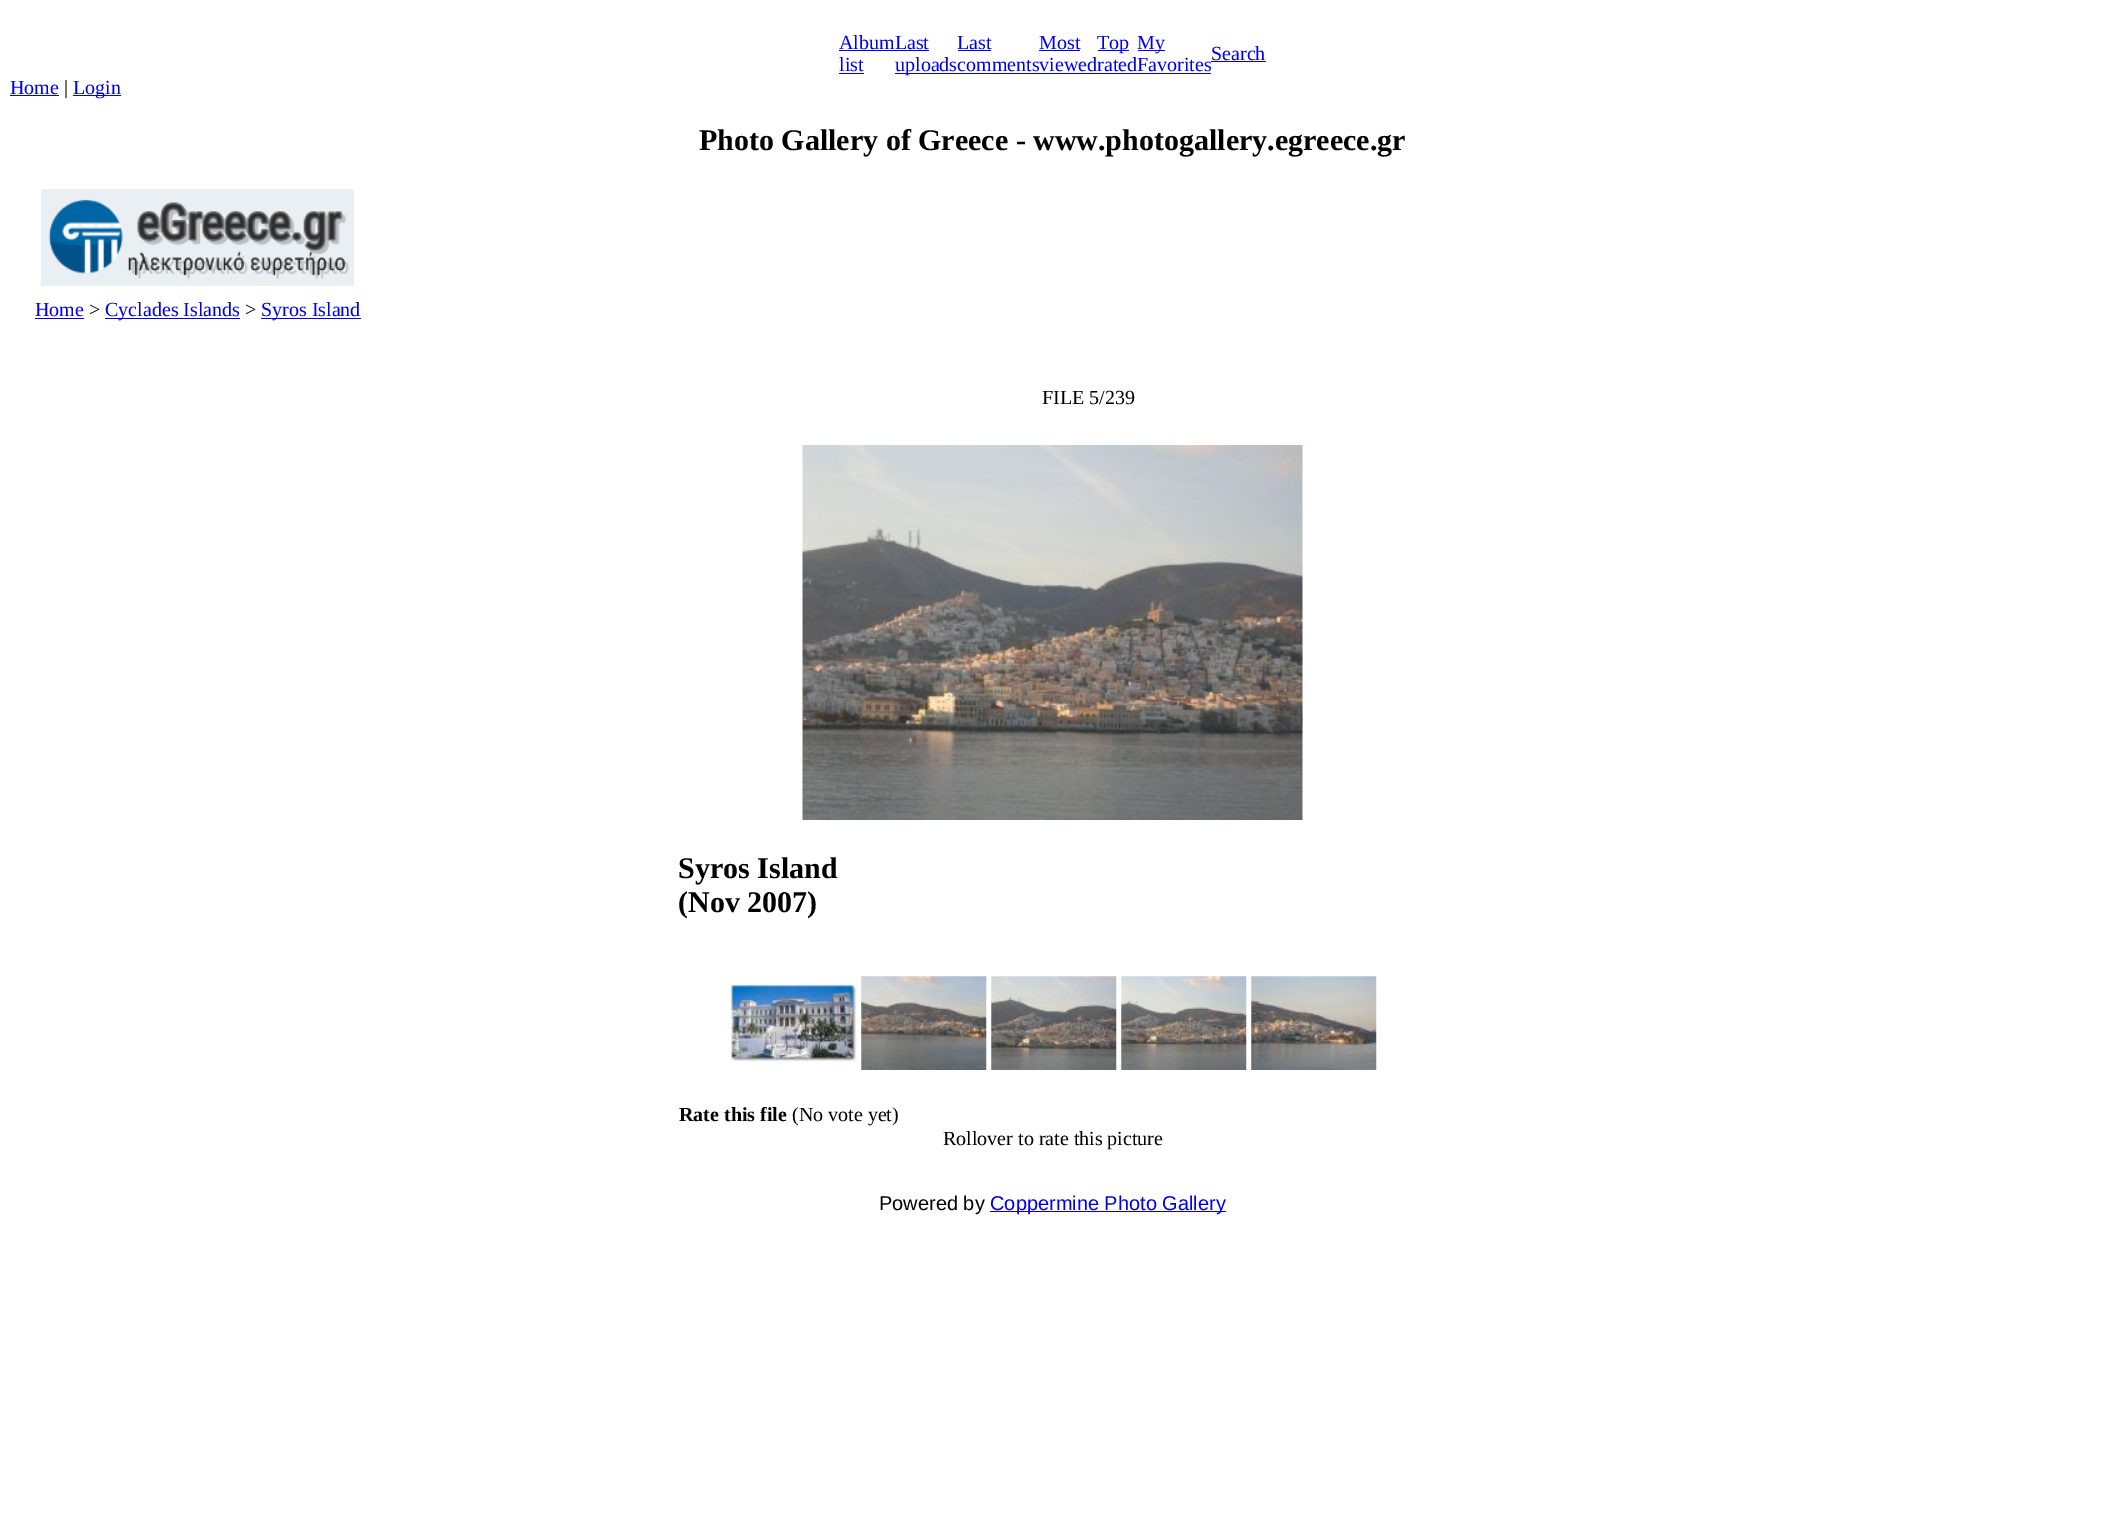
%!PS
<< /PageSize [2105 1528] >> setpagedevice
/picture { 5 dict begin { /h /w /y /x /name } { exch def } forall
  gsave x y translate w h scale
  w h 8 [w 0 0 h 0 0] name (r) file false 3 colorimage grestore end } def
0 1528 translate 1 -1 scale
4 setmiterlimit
1 setgray
0 0 2105 1528 rectfill
/LiberationSerif-Regular [20 0 0 -20 0 0] selectfont
0 0 0.933 setrgbcolor
839 49 moveto (AlbumLast) show
839 50 90 1 rectfill
839 71 moveto (list) show
839 73 25 1 rectfill
957 49 moveto (Last) show
958 50 33 1 rectfill
1039 49 moveto (Most) show
1039 50 41 1 rectfill
1098 50 31 1 rectfill
1097 49 moveto (Top) show
1138 50 27 1 rectfill
1137 49 moveto (My) show
1211 60 moveto (Search) show
1211 61 55 1 rectfill
895 73 316 1 rectfill
895 71 moveto (uploadscommentsviewedratedFavorites) show
10 94 moveto (Home) show
10 95 49 1 rectfill
0 setgray
64 94 moveto (|) show
0 0 0.933 setrgbcolor
73 95 48 1 rectfill
73 94 moveto (Login) show
/LiberationSerif-Bold [30 0 0 -30 0 0] selectfont
0 setgray
699 150 moveto (Photo Gallery of Greece - www.photogallery.egreece.gr) show
0.918 0.937 0.953 setrgbcolor
41 189 313 97 rectfill
(img1.rgb) 48 199 301 80 picture
/LiberationSerif-Regular [20 0 0 -20 0 0] selectfont
0 0 0.933 setrgbcolor
35 316 moveto (Home) show
35 318 49 1 rectfill
0 setgray
89 316 moveto (>) show
0 0 0.933 setrgbcolor
105 318 135 1 rectfill
105 316 moveto (Cyclades Islands) show
0 setgray
245 316 moveto (>) show
0 0 0.933 setrgbcolor
261 318 100 1 rectfill
261 316 moveto (Syros Island) show
0 setgray
1042 404 moveto (FILE 5/239) show
(img2.rgb) 802 445 501 375 picture
/LiberationSerif-Bold [30 0 0 -30 0 0] selectfont
678 878 moveto (Syros Island) show
678 912 moveto (\(Nov 2007\)) show
(img3.rgb) 731 985 126 77 picture
(img4.rgb) 861 976 126 94 picture
(img5.rgb) 991 976 126 94 picture
(img6.rgb) 1121 976 126 94 picture
(img7.rgb) 1251 976 126 94 picture
/LiberationSerif-Bold [20 0 0 -20 0 0] selectfont
679 1121 moveto (Rate this file) show
/LiberationSerif-Regular [20 0 0 -20 0 0] selectfont
792 1121 moveto (\(No vote yet\)) show
943 1145 moveto (Rollover to rate this picture) show
/LiberationSans-Regular [20 0 0 -20 0 0] selectfont
879 1210 moveto (Powered by) show
0 0 0.933 setrgbcolor
990 1211 236 1 rectfill
990 1210 moveto (Coppermine Photo Gallery) show
showpage
